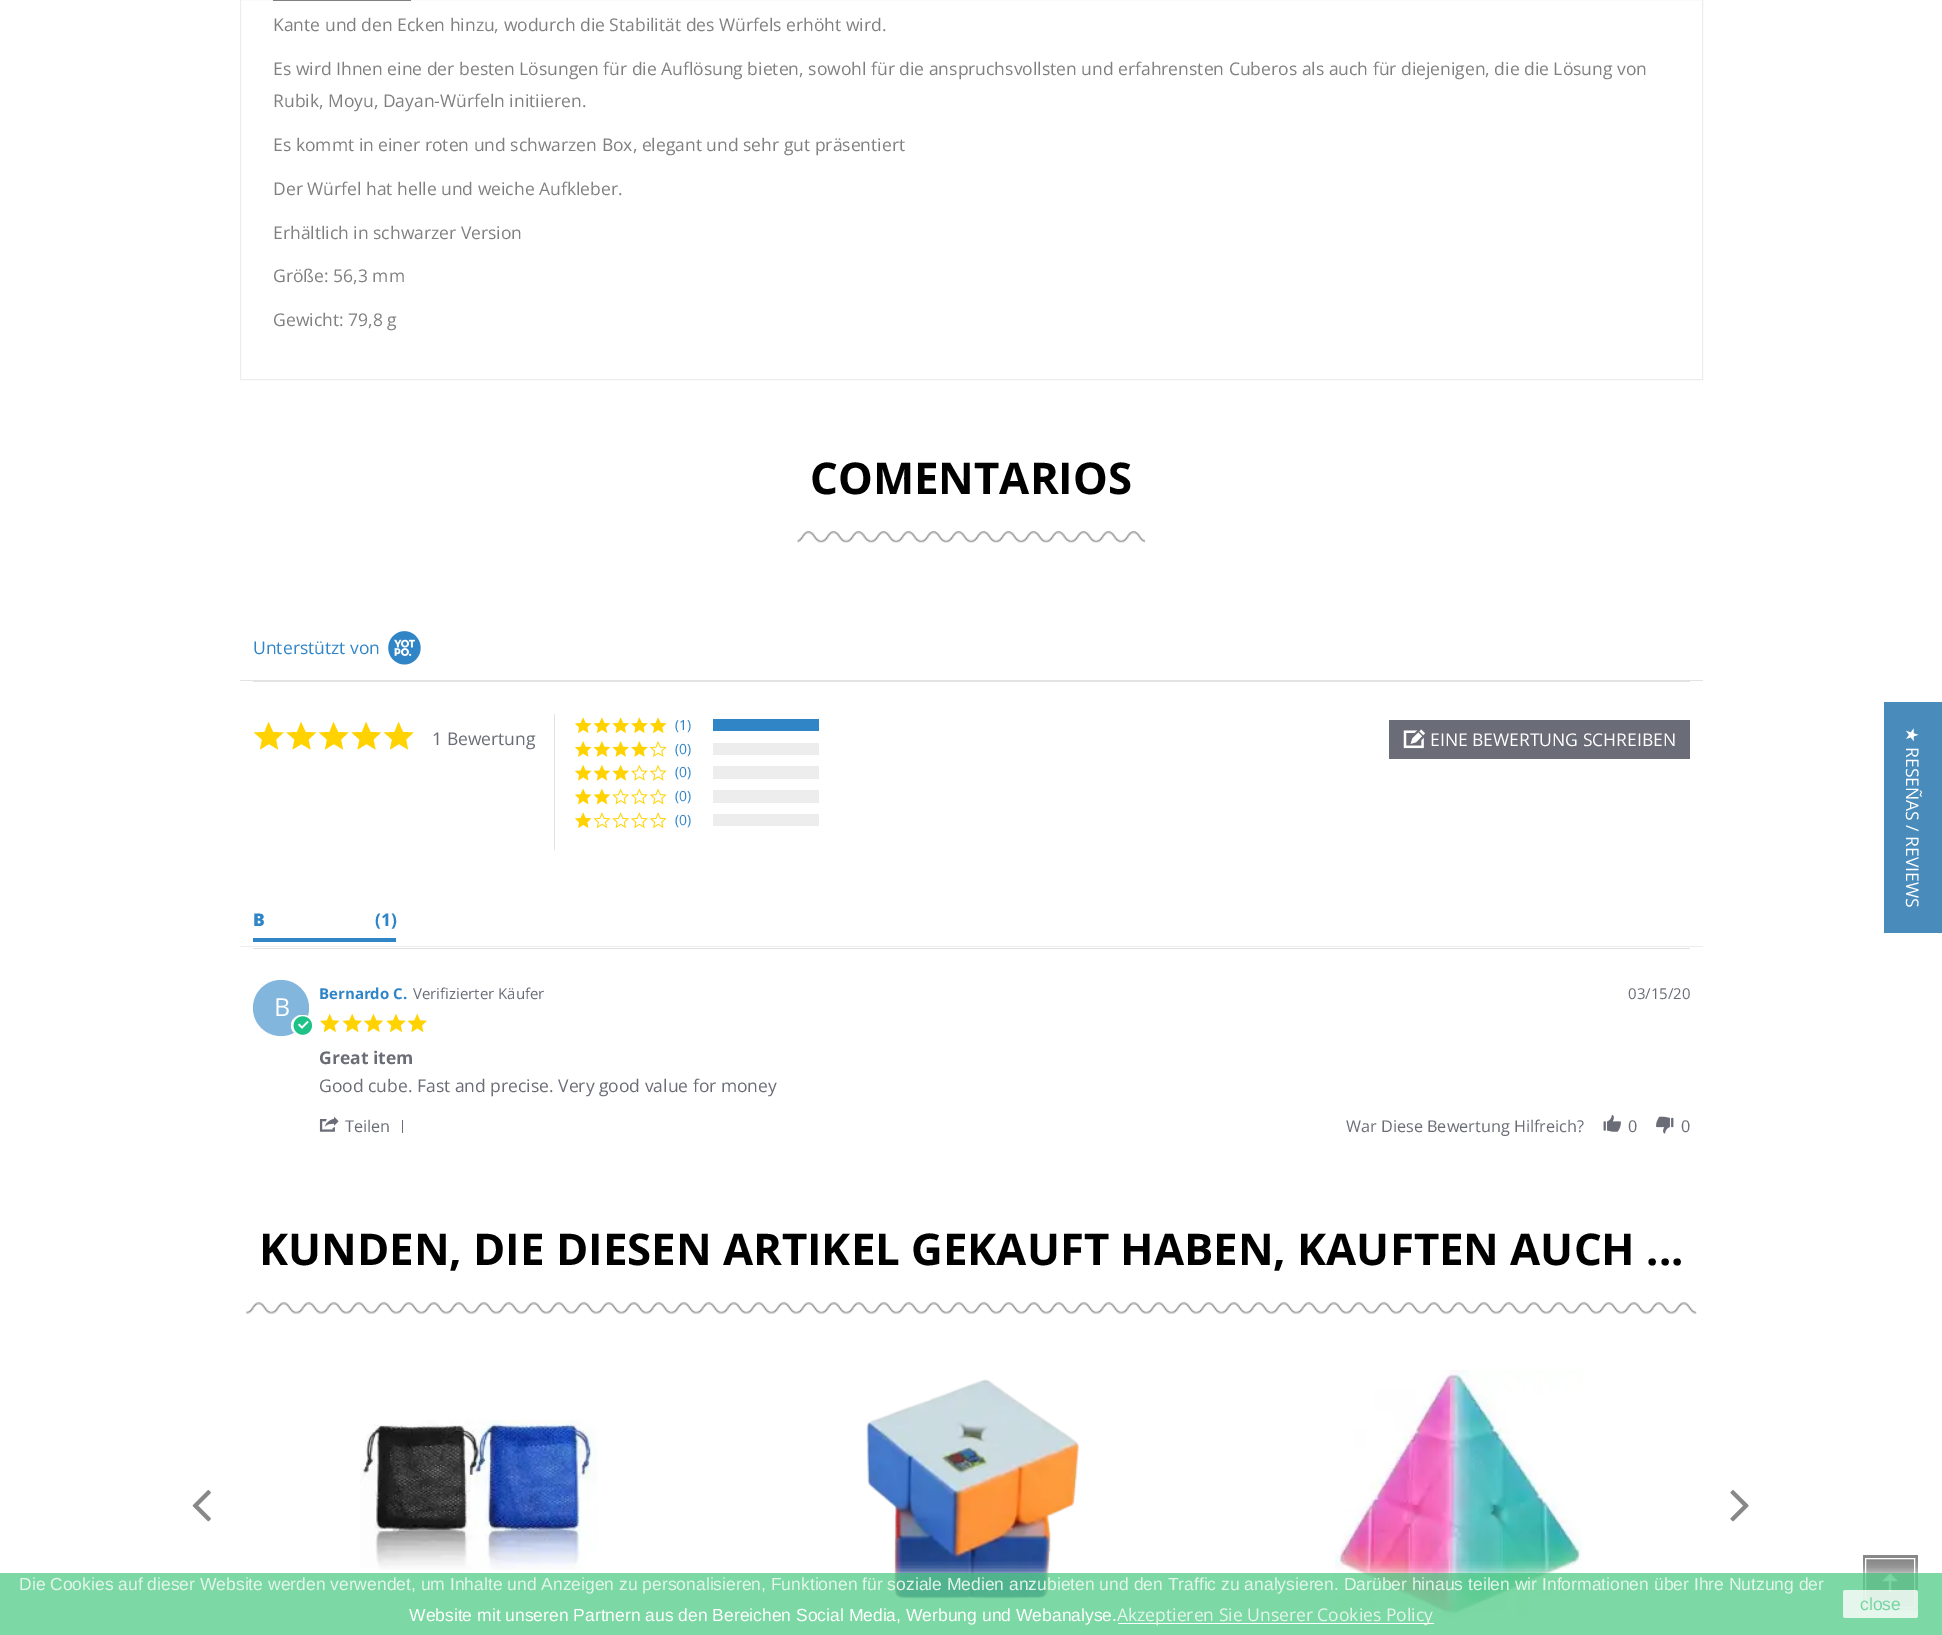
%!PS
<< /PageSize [1942 1635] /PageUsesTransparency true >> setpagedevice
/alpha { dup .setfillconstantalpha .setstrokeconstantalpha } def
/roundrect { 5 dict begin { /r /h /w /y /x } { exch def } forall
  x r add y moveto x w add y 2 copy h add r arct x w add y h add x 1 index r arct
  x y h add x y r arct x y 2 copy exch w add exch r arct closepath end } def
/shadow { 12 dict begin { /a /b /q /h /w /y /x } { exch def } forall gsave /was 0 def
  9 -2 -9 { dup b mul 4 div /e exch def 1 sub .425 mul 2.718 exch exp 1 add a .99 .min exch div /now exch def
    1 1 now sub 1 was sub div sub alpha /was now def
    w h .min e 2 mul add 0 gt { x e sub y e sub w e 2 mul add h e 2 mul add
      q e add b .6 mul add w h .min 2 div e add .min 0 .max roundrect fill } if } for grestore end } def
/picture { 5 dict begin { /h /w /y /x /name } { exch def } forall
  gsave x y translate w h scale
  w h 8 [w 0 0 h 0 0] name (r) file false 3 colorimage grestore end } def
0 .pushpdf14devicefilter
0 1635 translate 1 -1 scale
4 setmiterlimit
1 setgray
0 0 1942 1635 rectfill
0.929 setgray
240.5 -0.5 1462 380 rectstroke
0.502 setgray
273 0 138 1 rectfill
/OpenSans-Regular [17.5 0 0 -17.5 0 0] selectfont
273 31 moveto (Kante und den Ecken hinzu, wodurch die Stabilität des Würfels erhöht wird.) show
273 75 moveto (Es wird Ihnen eine der besten Lösungen für die Auflösung bieten, sowohl für die anspruchsvollsten und erfahrensten Cuberos als auch für diejenigen, die die Lösung von) show
273 107 moveto (Rubik, Moyu, Dayan-Würfeln initiieren.) show
273 151 moveto (Es kommt in einer roten und schwarzen Box, elegant und sehr gut präsentiert) show
273 195 moveto (Der Würfel hat helle und weiche Aufkleber.) show
273 239 moveto (Erhältlich in schwarzer Version) show
273 282 moveto (Größe: 56,3 mm) show
273 326 moveto (Gewicht: 79,8 g) show
(img1.rgb) 797 531 348 12 picture
/OpenSans-Bold [43.75 0 0 -43.75 0 0] selectfont
0 setgray
810 494 moveto (COMENTARIOS) show
0.89 setgray
240 680 1463 1 rectfill
/OpenSans-Regular [17.5 0 0 -17.5 0 0] selectfont
0.188 0.522 0.78 setrgbcolor
253 654 moveto (Unterstützt von) show
(img2.rgb) 388 631 33 34 picture
0.89 setgray
253 681 1437 1 rectfill
1 0.824 0 setrgbcolor
newpath 278 749.5 moveto 269 744 lineto 260 749.5 lineto 262 739.5 lineto 254 732.5 lineto 264.5 732 lineto 268.5 722 lineto 273 732 lineto 283.5 732.5 lineto 276 739.5 lineto closepath 310.5 749.5 moveto 301.5 744 lineto 292.5 749.5 lineto 294.5 739.5 lineto 286.5 732.5 lineto 297 732 lineto 301 722 lineto 305.5 732 lineto 316 732.5 lineto 308.5 739.5 lineto closepath fill
newpath 343 749.5 moveto 334 744 lineto 325 749.5 lineto 327 739.5 lineto 319 732.5 lineto 329.5 732 lineto 333.5 722 lineto 338 732 lineto 348.5 732.5 lineto 341 739.5 lineto closepath 375.5 749.5 moveto 366.5 744 lineto 357.5 749.5 lineto 359.5 739.5 lineto 351.5 732.5 lineto 362 732 lineto 366 722 lineto 370.5 732 lineto 381 732.5 lineto 373.5 739.5 lineto closepath fill
newpath 408 749.5 moveto 399 744 lineto 390 749.5 lineto 392 739.5 lineto 384 732.5 lineto 394.5 732 lineto 398.5 722 lineto 403 732 lineto 413.5 732.5 lineto 406 739.5 lineto closepath fill
0.42 0.427 0.463 setrgbcolor
432 745 moveto (1 Bewertung) show
0.89 setgray
554 714 1 136 rectfill
(img3.rgb) 574 717 18 17 picture
(img4.rgb) 593 717 18 17 picture
(img5.rgb) 612 717 17 17 picture
(img6.rgb) 631 717 17 17 picture
(img3.rgb) 649 717 18 17 picture
(img7.rgb) 574 741 18 16 picture
(img8.rgb) 593 741 18 16 picture
(img9.rgb) 612 741 17 16 picture
(img10.rgb) 631 741 17 16 picture
(img11.rgb) 649 741 18 16 picture
(img12.rgb) 575 764 17 17 picture
(img13.rgb) 593 764 18 17 picture
(img14.rgb) 612 764 17 17 picture
(img15.rgb) 631 764 17 17 picture
(img16.rgb) 650 764 17 17 picture
(img17.rgb) 574 788 18 17 picture
(img18.rgb) 593 788 18 17 picture
(img19.rgb) 612 788 17 17 picture
(img20.rgb) 631 788 17 17 picture
(img21.rgb) 649 788 18 17 picture
(img3.rgb) 574 812 18 17 picture
(img22.rgb) 593 812 18 17 picture
(img23.rgb) 612 812 17 17 picture
(img24.rgb) 631 812 17 17 picture
(img25.rgb) 649 812 18 17 picture
/OpenSans-Regular [14 0 0 -14 0 0] selectfont
0.188 0.522 0.78 setrgbcolor
675 730 moveto (\(1\)) show
675 754 moveto (\(0\)) show
675 777 moveto (\(0\)) show
675 801 moveto (\(0\)) show
675 825 moveto (\(0\)) show
713 719 106 12 rectfill
0.929 setgray
713 743 106 12 rectfill
713 766 106 13 rectfill
713 790 106 13 rectfill
713 814 106 12 rectfill
0.416 0.424 0.467 setrgbcolor
1389 720 301 39 rectfill
(img26.rgb) 1403 729 22 20 picture
/OpenSans-Regular [17.5 0 0 -17.5 0 0] selectfont
1 setgray
1430 746 moveto (EINE BEWERTUNG SCHREIBEN) show
0.922 0.933 0.937 setrgbcolor
240 946 1463 1 rectfill
0.188 0.522 0.78 setrgbcolor
253 938 143 4 rectfill
/NotoSans-Black [17.5 0 0 -17.5 0 0] selectfont
253 926 moveto (B) show
/OpenSans-Bold [17.5 0 0 -17.5 0 0] selectfont
375 926 moveto (\(1\)) show
0.89 setgray
253 948 1437 1 rectfill
/OpenSans-Bold [15 0 0 -15 0 0] selectfont
0.188 0.522 0.78 setrgbcolor
319 999 moveto (Bernardo C.) show
/OpenSans-Regular [15 0 0 -15 0 0] selectfont
0.42 0.427 0.463 setrgbcolor
413 999 moveto (Verifizierter Käufer) show
(img27.rgb) 320 1013 20 20 picture
(img28.rgb) 342 1013 20 20 picture
(img29.rgb) 363 1013 21 20 picture
(img30.rgb) 386 1013 20 20 picture
(img28.rgb) 407 1013 20 20 picture
1628 999 moveto (03/15/20) show
0.514 0.714 0.867 setrgbcolor
newpath 281 1008 28 0 360 arc closepath fill
/OpenSans-Regular [25 0 0 -25 0 0] selectfont
1 setgray
274 1016 moveto (B) show
291 1015 23 21 10.5 roundrect fill
(img31.rgb) 293 1016 20 19 picture
/OpenSans-Bold [17.5 0 0 -17.5 0 0] selectfont
0.42 0.427 0.463 setrgbcolor
319 1064 moveto (Great item) show
/OpenSans-Regular [17.5 0 0 -17.5 0 0] selectfont
319 1092 moveto (Good cube. Fast and precise. Very good value for money) show
(img32.rgb) 319 1116 20 16 picture
/OpenSans-Regular [16.25 0 0 -16.25 0 0] selectfont
345 1132 moveto (Teilen) show
0.416 0.424 0.467 setrgbcolor
402 1120 1 13 rectfill
0.42 0.427 0.463 setrgbcolor
1346 1132 moveto (War Diese Bewertung Hilfreich?) show
(img33.rgb) 1603 1114 18 18 picture
1628 1132 moveto (0) show
(img34.rgb) 1656 1116 18 18 picture
1681 1132 moveto (0) show
(img35.rgb) 246 1302 1451 12 picture
/OpenSans-Bold [43.75 0 0 -43.75 0 0] selectfont
0 setgray
259 1265 moveto (KUNDEN, DIE DIESEN ARTIKEL GEKAUFT HABEN, KAUFTEN AUCH ...) show
(img36.rgb) 360 1420 238 150 picture
(img37.rgb) 866 1379 213 220 picture
(img38.rgb) 1335 1370 248 247 picture
(img39.rgb) 192 1490 19 32 picture
(img40.rgb) 1730 1490 19 32 picture
0.533 setgray
1863 1555 55 55 rectfill
(img41.rgb) 1882 1573 16 20 picture
1 setgray
1865.5 1558.5 49 49 rectstroke
gsave
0 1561 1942 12 rectclip
0 1573 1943 62 0 6 0.8 shadow
grestore
0.8 alpha
0.357 0.808 0.553 setrgbcolor
0 1573 1942 62 rectfill
/LiberationSans-Regular [17.5 0 0 -17.5 0 0] selectfont
1 alpha
0.894 0.965 0.925 setrgbcolor
19 1590 moveto (Die Cookies auf dieser Website werden verwendet, um Inhalte und Anzeigen zu personalisieren, Funktionen für soziale Medien anzubieten und den Traffic zu analysieren. Darüber hinaus teilen wir Informationen über Ihre Nutzung der) show
1 setgray
409 1621 moveto (Website mit unseren Partnern aus den Bereichen Social Media, Werbung und Webanalyse.) show
1118 1623 316 1 rectfill
/OpenSans-Regular [17.5 0 0 -17.5 0 0] selectfont
0.894 0.965 0.925 setrgbcolor
1117 1621 moveto (Akzeptieren Sie Unserer Cookies Policy) show
0.8 alpha
1 setgray
1843 1590 75 28 2.5 roundrect fill
/LiberationSans-Regular [17.5 0 0 -17.5 0 0] selectfont
1 alpha
0.463 0.835 0.624 setrgbcolor
1860 1610 moveto (close) show
0.286 0.549 0.737 setrgbcolor
1884 702 58 231 rectfill
/DejaVuSans-Regular [17.5 0 0 -17.5 0 0] selectfont
1 setgray
gsave 1906 727 translate 90 rotate 0 0 moveto (★) show grestore
/OpenSans-Regular [17.5 0 0 -17.5 0 0] selectfont
gsave 1906 747 translate 90 rotate 0 0 moveto (RESEÑAS / REVIEWS) show grestore
.poppdf14devicefilter showpage
